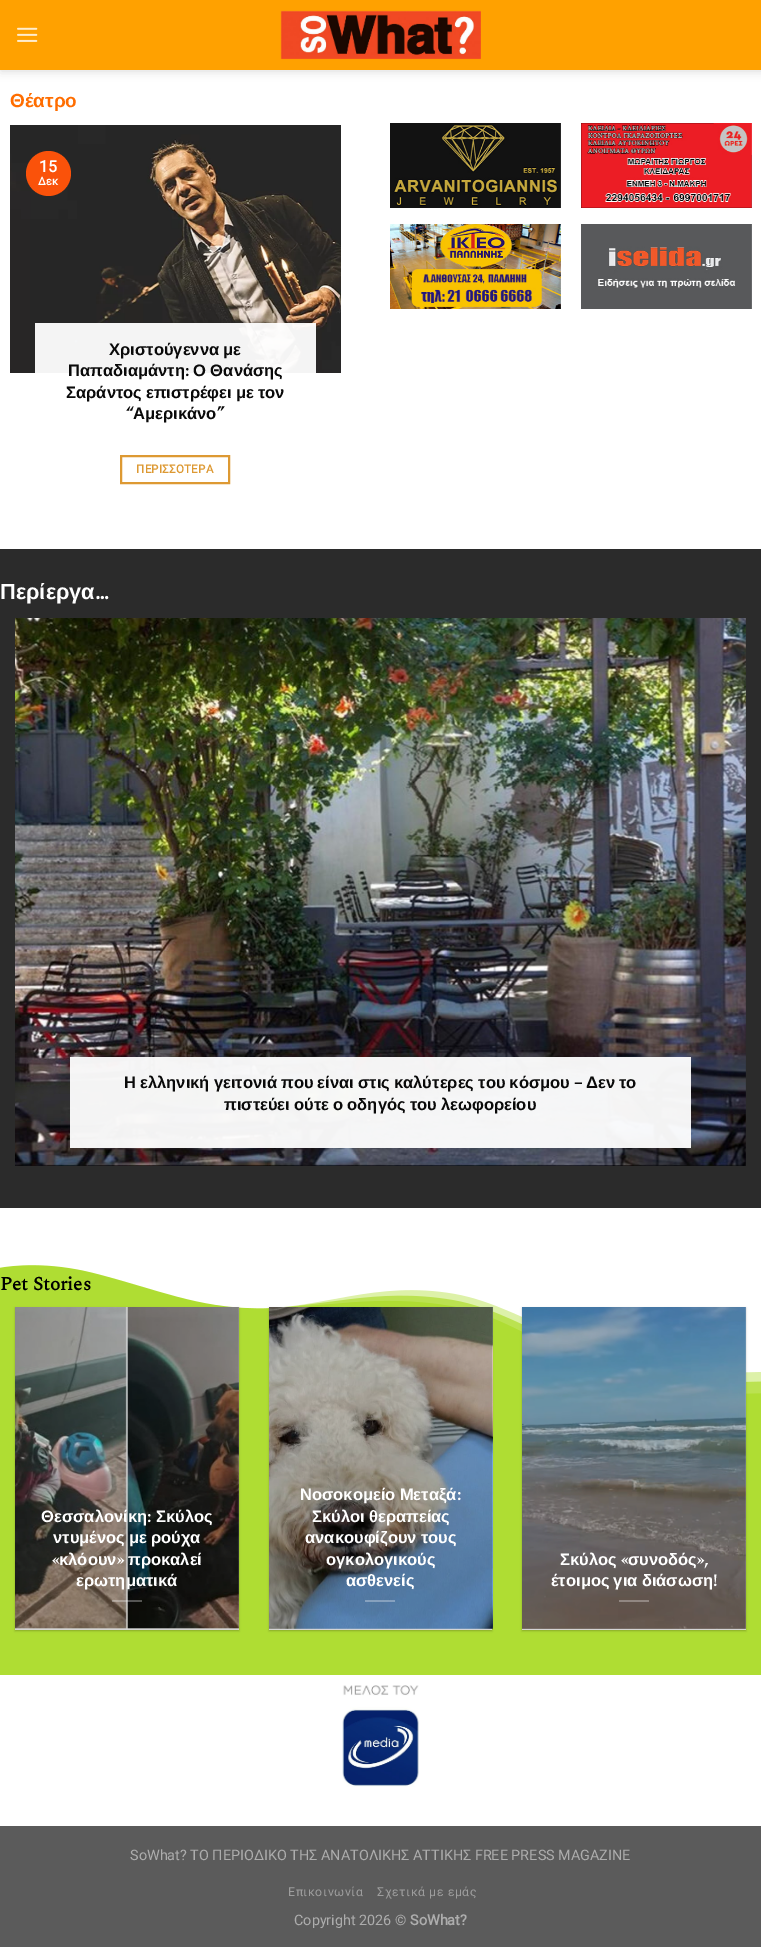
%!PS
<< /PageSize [761 1947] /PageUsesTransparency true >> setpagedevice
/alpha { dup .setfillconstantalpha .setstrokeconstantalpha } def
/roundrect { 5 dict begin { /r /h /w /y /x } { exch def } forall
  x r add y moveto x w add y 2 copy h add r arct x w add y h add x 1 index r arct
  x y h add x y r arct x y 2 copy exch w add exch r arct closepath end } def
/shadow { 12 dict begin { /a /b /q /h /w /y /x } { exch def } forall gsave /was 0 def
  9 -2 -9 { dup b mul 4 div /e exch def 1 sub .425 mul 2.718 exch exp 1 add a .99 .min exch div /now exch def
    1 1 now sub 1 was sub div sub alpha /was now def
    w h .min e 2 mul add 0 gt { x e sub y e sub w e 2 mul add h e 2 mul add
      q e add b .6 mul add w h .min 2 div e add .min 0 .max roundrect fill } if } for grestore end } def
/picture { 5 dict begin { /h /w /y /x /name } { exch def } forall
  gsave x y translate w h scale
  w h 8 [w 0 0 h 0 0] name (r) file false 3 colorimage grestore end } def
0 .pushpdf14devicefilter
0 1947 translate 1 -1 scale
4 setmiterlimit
1 setgray
0 0 761 1947 rectfill
0 setgray
1 1 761 70 0 5 0.15 shadow
1 0.631 0 setrgbcolor
0 0 761 70 rectfill
(img1.rgb) 17 27 21 15 picture
(img2.rgb) 280 10 201 50 picture
/LiberationSans-Bold [19 0 0 -19 0 0] selectfont
1 0.427 0 setrgbcolor
10 107 moveto (Θέατρο) show
(img3.rgb) 10 125 331 248 picture
0.98 0.322 0.039 setrgbcolor
newpath 48.5 173.5 22.5 0 360 arc closepath fill
/Roboto-Bold [16 0 0 -16 0 0] selectfont
1 setgray
39 172 moveto (15) show
/Roboto-Bold [11 0 0 -11 0 0] selectfont
38 185 moveto (Δεκ) show
0.95 alpha
35 323 281 50 rectfill
/LiberationSans-Bold [16.55 0 0 -16.55 0 0] selectfont
1 alpha
0.039 setgray
109 355 moveto -0.5 0 32 (Χριστούγεννα με) widthshow
68 376 moveto (Παπαδιαμάντη) show
/Spectral-Bold [16.55 0 0 -16.55 0 0] selectfont
185 376 moveto (:) show
/LiberationSans-Bold [16.55 0 0 -16.55 0 0] selectfont
193 376 moveto (Ο Θανάσης) show
66 398 moveto -0.5 0 32 (Σαράντος επιστρέφει με τον) widthshow
/Spectral-Bold [16.55 0 0 -16.55 0 0] selectfont
126 419 moveto (“) show
/LiberationSans-Bold [16.55 0 0 -16.55 0 0] selectfont
133 419 moveto (Αμερικάνο) show
/Spectral-Bold [16.55 0 0 -16.55 0 0] selectfont
217 419 moveto (”) show
0.867 0.6 0.2 setrgbcolor
2 setlinewidth
121 456 108 27 rectstroke
/Roboto-Bold [11.5 0 0 -11.5 0 0] selectfont
136 473 moveto 0.3 0 (ΠΕΡΙΣΣΟΤΕΡΑ) ashow
(img4.rgb) 390 123 171 85 picture
(img5.rgb) 390 224 171 85 picture
(img6.rgb) 581 123 171 85 picture
(img7.rgb) 581 224 171 85 picture
0.169 setgray
0 549 761 659 rectfill
/LiberationSans-Bold [21.75 0 0 -21.75 0 0] selectfont
1 setgray
0 599 moveto (Περίεργα) show
/Spectral-Bold [21.75 0 0 -21.75 0 0] selectfont
95 599 moveto (…) show
(img8.rgb) 15 618 731 548 picture
0.95 alpha
70 1057 621 91 rectfill
/LiberationSans-Bold [16.55 0 0 -16.55 0 0] selectfont
1 alpha
0.039 setgray
124 1088 moveto -0.5 0 32 (Η ελληνική γειτονιά που είναι στις καλύτερες του κόσμου) widthshow
/Spectral-Bold [16.55 0 0 -16.55 0 0] selectfont
574 1088 moveto (–) show
/LiberationSans-Bold [16.55 0 0 -16.55 0 0] selectfont
586 1088 moveto -0.5 0 32 (Δεν το) widthshow
224 1110 moveto -0.5 0 32 (πιστεύει ούτε ο οδηγός του λεωφορείου) widthshow
0.686 0.867 0.2 setrgbcolor
0 1265 761 410 rectfill
(img9.rgb) 0 1258 761 136 picture
/Spectral-Bold [19 0 0 -19 0 0] selectfont
0 setgray
0 1290 moveto (Pet Stories) show
15 1308 224 323 0 1 0.24 shadow
1 setgray
15 1307 224 323 rectfill
(img10.rgb) 15 1307 224 322 picture
0.17 alpha
0 setgray
15 1307 224 323 rectfill
/LiberationSans-Bold [16.55 0 0 -16.55 0 0] selectfont
1 alpha
1 setgray
41 1522 moveto (Θεσσαλονίκη) show
/Spectral-Bold [16.55 0 0 -16.55 0 0] selectfont
147 1522 moveto (:) show
/LiberationSans-Bold [16.55 0 0 -16.55 0 0] selectfont
156 1522 moveto (Σκύλος) show
53 1543 moveto -0.5 0 32 (ντυμένος με ρούχα) widthshow
/Spectral-Bold [16.55 0 0 -16.55 0 0] selectfont
52 1565 moveto («) show
/LiberationSans-Bold [16.55 0 0 -16.55 0 0] selectfont
59 1565 moveto (κλόουν) show
/Spectral-Bold [16.55 0 0 -16.55 0 0] selectfont
117 1565 moveto (») show
/LiberationSans-Bold [16.55 0 0 -16.55 0 0] selectfont
128 1565 moveto (προκαλεί) show
76 1586 moveto (ερωτηματικά) show
0.3 alpha
112 1600 30 2 rectfill
1 alpha
0 setgray
269 1308 223 323 0 1 0.24 shadow
1 setgray
269 1628 223 2 rectfill
(img11.rgb) 269 1307 224 322 picture
0.17 alpha
0 setgray
269 1307 223 323 rectfill
1 alpha
1 setgray
300 1500 moveto -0.5 0 32 (Νοσοκομείο Μεταξά) widthshow
/Spectral-Bold [16.55 0 0 -16.55 0 0] selectfont
457 1500 moveto (:) show
/LiberationSans-Bold [16.55 0 0 -16.55 0 0] selectfont
312 1522 moveto -0.5 0 32 (Σκύλοι θεραπείας) widthshow
305 1543 moveto -0.5 0 32 (ανακουφίζουν τους) widthshow
326 1565 moveto (ογκολογικούς) show
346 1586 moveto (ασθενείς) show
0.3 alpha
365 1600 30 2 rectfill
1 alpha
0 setgray
522 1308 224 323 0 1 0.24 shadow
1 setgray
522 1307 224 323 rectfill
(img12.rgb) 522 1307 224 322 picture
0.17 alpha
0 setgray
522 1307 224 323 rectfill
1 alpha
1 setgray
560 1565 moveto (Σκύλος) show
/Spectral-Bold [16.55 0 0 -16.55 0 0] selectfont
621 1565 moveto («) show
/LiberationSans-Bold [16.55 0 0 -16.55 0 0] selectfont
628 1565 moveto (συνοδός) show
/Spectral-Bold [16.55 0 0 -16.55 0 0] selectfont
697 1565 moveto (»,) show
/LiberationSans-Bold [16.55 0 0 -16.55 0 0] selectfont
551 1586 moveto -0.5 0 32 (έτοιμος για διάσωση) widthshow
/Spectral-Bold [16.55 0 0 -16.55 0 0] selectfont
713 1586 moveto (!) show
0.569 0.529 0.51 setrgbcolor
619 1600 30 2 rectfill
(img13.rgb) 342 1685 77 102 picture
0.357 setgray
0 1826 761 121 rectfill
/Roboto-Regular [14.4 0 0 -14.4 0 0] selectfont
0.678 setgray
130 1860 moveto (SoWhat? ΤΟ ΠΕΡΙΟΔΙΚΟ ΤΗΣ ΑΝΑΤΟΛΙΚΗΣ ΑΤΤΙΚΗΣ FREE PRESS MAGAZINE) show
/Roboto-Regular [12.25 0 0 -12.25 0 0] selectfont
0.616 setgray
288 1896 moveto 0.6 0 (Επικοινωνία) ashow
377 1896 moveto 0.6 0 (Σχετικά με εμάς) ashow
/Roboto-Regular [14.4 0 0 -14.4 0 0] selectfont
0.678 setgray
294 1925 moveto (Copyright 2026 ©) show
/Roboto-Bold [14.4 0 0 -14.4 0 0] selectfont
410 1925 moveto (SoWhat?) show
.poppdf14devicefilter showpage
